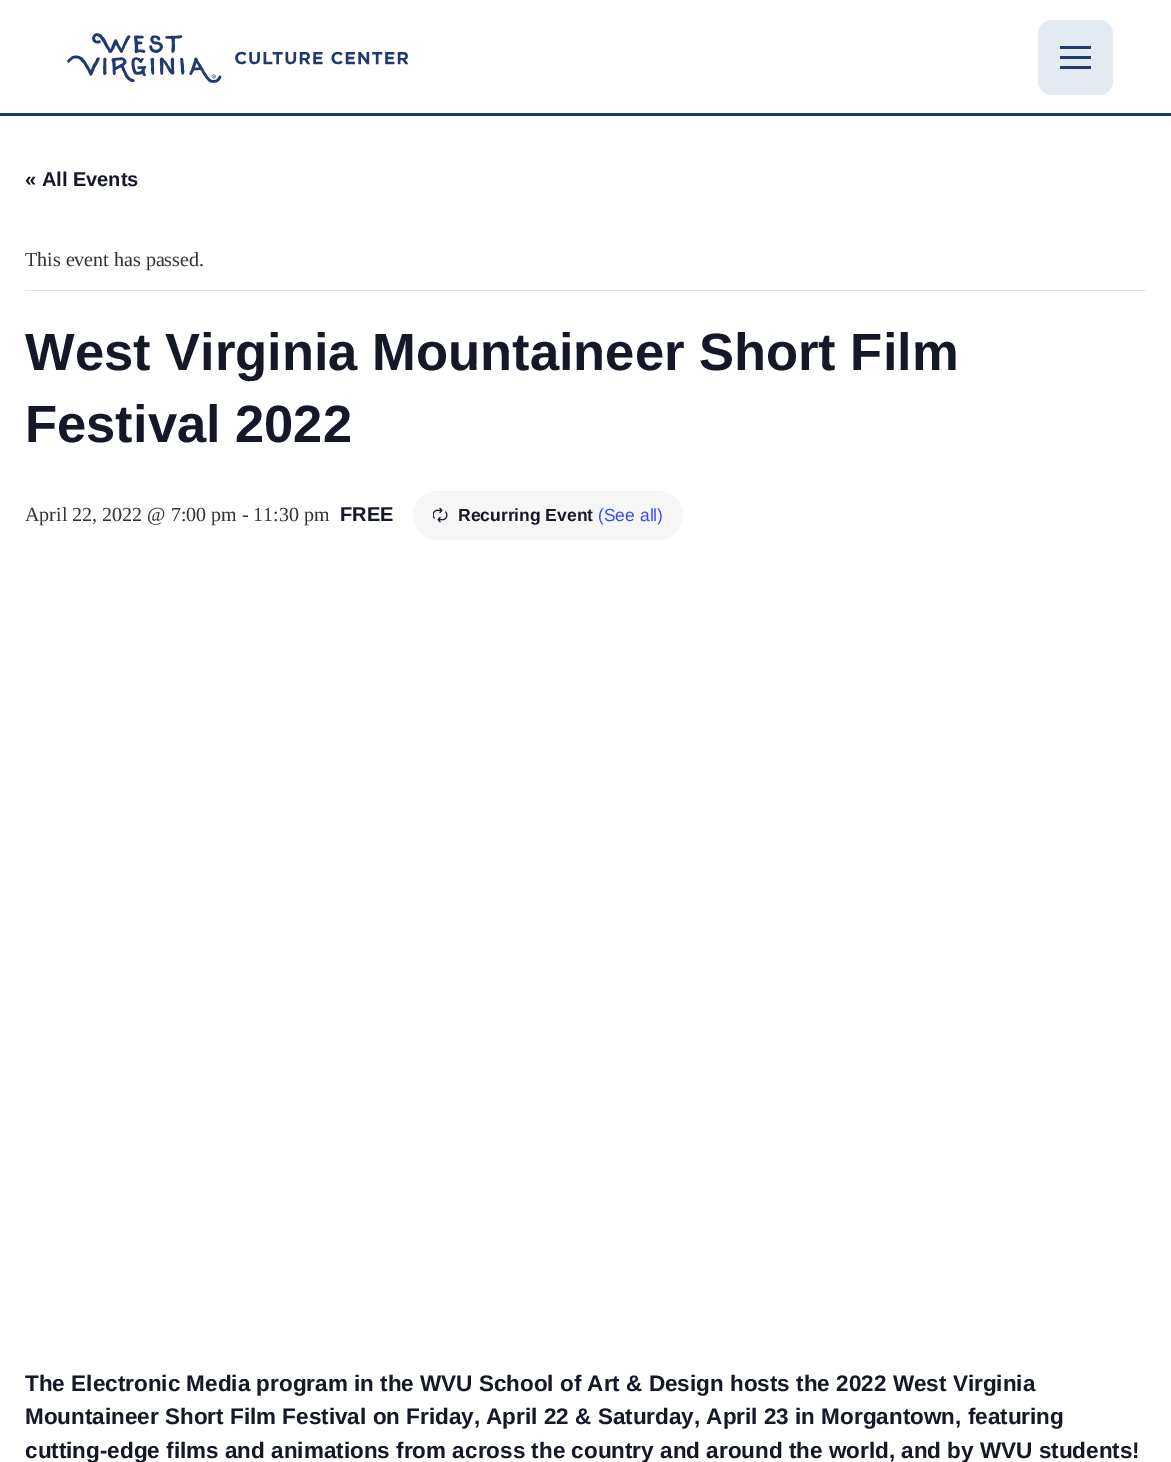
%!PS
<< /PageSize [1171 1462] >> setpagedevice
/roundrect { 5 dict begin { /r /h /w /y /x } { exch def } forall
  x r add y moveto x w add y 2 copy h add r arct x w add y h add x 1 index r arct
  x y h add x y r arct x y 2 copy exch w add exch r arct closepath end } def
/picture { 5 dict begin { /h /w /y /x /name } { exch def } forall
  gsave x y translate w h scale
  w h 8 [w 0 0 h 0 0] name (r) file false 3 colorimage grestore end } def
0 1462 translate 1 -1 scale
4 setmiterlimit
1 setgray
0 0 1171 1462 rectfill
(img1.rgb) 67 33 342 50 picture
0.894 0.918 0.949 setrgbcolor
1038 20 75 75 14 roundrect fill
0.125 0.227 0.439 setrgbcolor
1060 46 31 3 rectfill
1060 56 31 3 rectfill
1060 66 31 3 rectfill
0 113 1171 3 rectfill
/LiberationSans-Bold [20 0 0 -20 0 0] selectfont
0.078 0.094 0.153 setrgbcolor
25 186 moveto (« All Events) show
0.894 setgray
25 290 1121 1 rectfill
/LiberationSerif-Regular [20 0 0 -20 0 0] selectfont
0.2 setgray
25 266 moveto (This event has passed.) show
/LiberationSans-Bold [52.5 0 0 -52.5 0 0] selectfont
0.078 0.094 0.153 setrgbcolor
25 370 moveto (West Virginia Mountaineer Short Film) show
25 442 moveto (Festival 2022) show
/LiberationSerif-Regular [20 0 0 -20 0 0] selectfont
0.2 setgray
25 521 moveto (April 22, 2022 @ 7:00 pm - 11:30 pm) show
/LiberationSans-Bold [20 0 0 -20 0 0] selectfont
0.078 0.094 0.153 setrgbcolor
340 521 moveto (FREE) show
0.969 0.965 0.965 setrgbcolor
413 491 270 49 24.5 roundrect fill
(img2.rgb) 433 508 15 15 picture
/LiberationSans-Bold [17.5 0 0 -17.5 0 0] selectfont
0.078 0.094 0.153 setrgbcolor
458 521 moveto (Recurring Event) show
/LiberationSans-Regular [17.5 0 0 -17.5 0 0] selectfont
0.2 0.29 1 setrgbcolor
598 521 moveto (\(See all\)) show
/LiberationSans-Bold [22.5 0 0 -22.5 0 0] selectfont
0.078 0.094 0.153 setrgbcolor
25 1391 moveto (The Electronic Media program in the WVU School of Art & Design hosts the 2022 West Virginia) show
25 1424 moveto (Mountaineer Short Film Festival on Friday, April 22 & Saturday, April 23 in Morgantown, featuring) show
25 1458 moveto (cutting-edge films and animations from across the country and around the world, and by WVU students!) show
showpage
